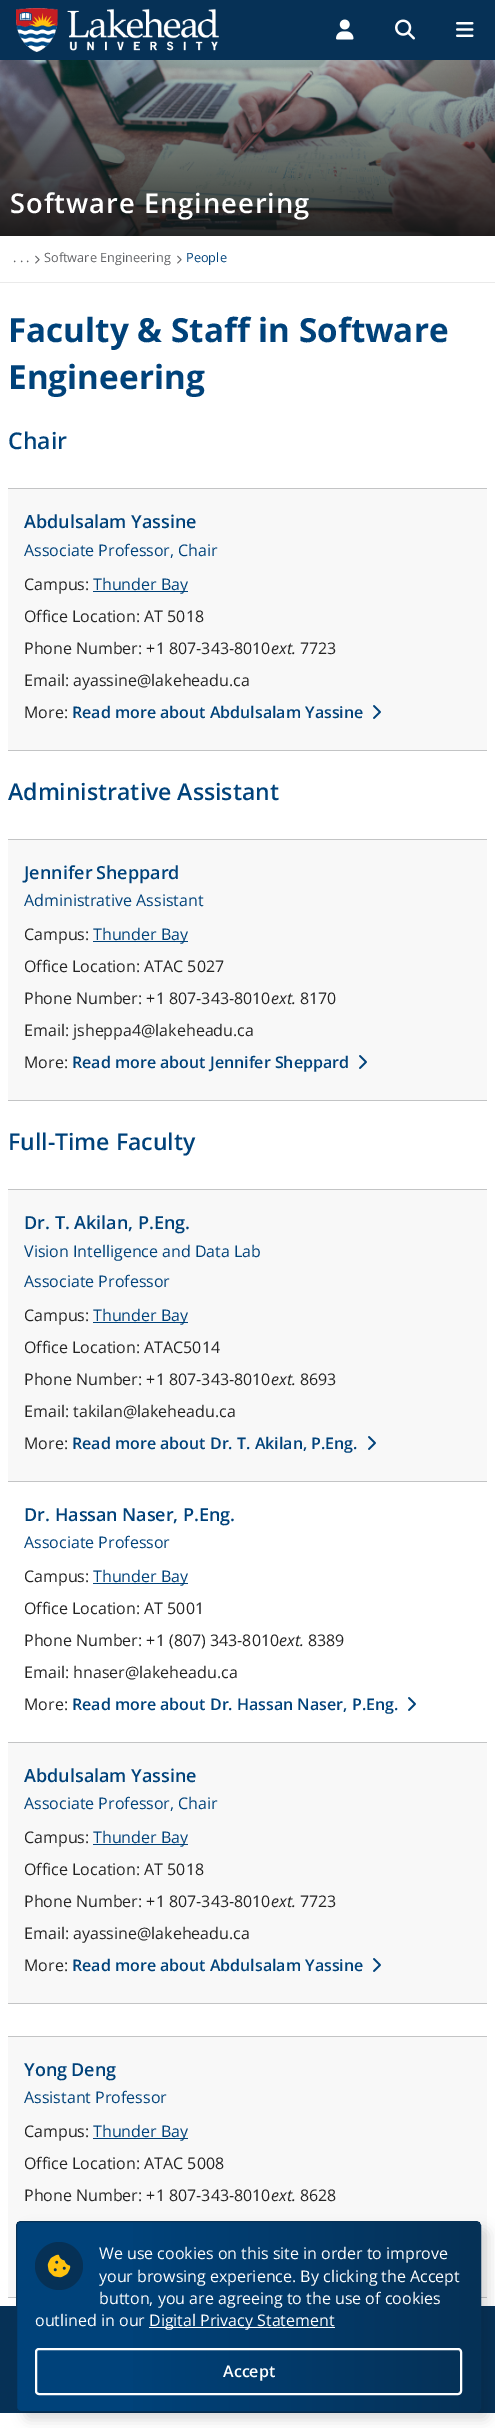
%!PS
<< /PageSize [495 2428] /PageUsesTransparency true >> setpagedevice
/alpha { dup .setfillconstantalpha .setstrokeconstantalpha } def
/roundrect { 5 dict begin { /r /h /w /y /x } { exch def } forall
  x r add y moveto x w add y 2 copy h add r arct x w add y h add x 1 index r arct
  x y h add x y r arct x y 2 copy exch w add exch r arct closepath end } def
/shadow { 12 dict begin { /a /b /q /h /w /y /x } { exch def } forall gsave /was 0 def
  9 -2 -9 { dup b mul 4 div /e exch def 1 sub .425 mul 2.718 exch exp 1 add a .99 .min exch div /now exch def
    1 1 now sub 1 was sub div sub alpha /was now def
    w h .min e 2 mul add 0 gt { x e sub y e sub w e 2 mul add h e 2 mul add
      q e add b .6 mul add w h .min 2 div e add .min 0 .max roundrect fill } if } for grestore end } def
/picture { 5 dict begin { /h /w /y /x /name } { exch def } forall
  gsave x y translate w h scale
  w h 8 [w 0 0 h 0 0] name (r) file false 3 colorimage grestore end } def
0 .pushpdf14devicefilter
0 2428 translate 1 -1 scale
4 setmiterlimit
1 setgray
0 0 495 2428 rectfill
0.024 0.192 0.337 setrgbcolor
0 0 495 60 rectfill
(img1.rgb) 16 8 203 44 picture
(img2.rgb) 336 19 18 21 picture
(img3.rgb) 395 19 20 21 picture
(img4.rgb) 456 22 18 15 picture
(img5.rgb) 0 60 495 176 picture
/OpenSans-SemiBold [27.25 0 0 -27.25 0 0] selectfont
1 setgray
10 213 moveto 1 0 (Software Engineering) ashow
0.918 setgray
0 282 495 1 rectfill
/OpenSans-Regular [12.75 0 0 -12.75 0 0] selectfont
0.38 0.384 0.396 setrgbcolor
13 262 moveto (. . .) show
(img6.rgb) 35 255 5 9 picture
44 262 moveto (Software Engineering) show
(img6.rgb) 177 255 5 9 picture
0 0.259 0.478 setrgbcolor
186 262 moveto (People) show
/OpenSans-Bold [33.25 0 0 -33.25 0 0] selectfont
8 342 moveto (Faculty & Staff in Software) show
8 389 moveto (Engineering) show
/OpenSans-SemiBold [23 0 0 -23 0 0] selectfont
8 449 moveto (Chair) show
0.973 setgray
8 489 479 261 rectfill
0.765 0.769 0.773 setrgbcolor
8 488 479 1 rectfill
8 750 479 1 rectfill
/OpenSans-SemiBold [18 0 0 -18 0 0] selectfont
0 0.259 0.478 setrgbcolor
24 528 moveto (Abdulsalam) show
131 528 moveto (Yassine) show
/OpenSans-Regular [16 0 0 -16 0 0] selectfont
24 556 moveto (Associate Professor, Chair) show
0.141 setgray
24 590 moveto (Campus:) show
0 0.259 0.478 setrgbcolor
93 591 95 1 rectfill
93 590 moveto (Thunder Bay) show
0.141 setgray
24 622 moveto (Office Location: AT 5018) show
24 654 moveto (Phone Number: +1 807-343-8010) show
/OpenSans-Italic [16 0 0 -16 0 0] selectfont
271 654 moveto (ext.) show
/OpenSans-Regular [16 0 0 -16 0 0] selectfont
300 654 moveto (7723) show
24 686 moveto (Email: ayassine@lakeheadu.ca) show
24 718 moveto (More:) show
/OpenSans-SemiBold [16 0 0 -16 0 0] selectfont
0 0.259 0.478 setrgbcolor
72 718 moveto (Read more about Abdulsalam Yassine) show
(img7.rgb) 373 705 8 14 picture
/OpenSans-SemiBold [23 0 0 -23 0 0] selectfont
8 800 moveto (Administrative Assistant) show
0.973 setgray
8 840 479 260 rectfill
0.765 0.769 0.773 setrgbcolor
8 839 479 1 rectfill
8 1100 479 1 rectfill
/OpenSans-SemiBold [18 0 0 -18 0 0] selectfont
0 0.259 0.478 setrgbcolor
24 879 moveto (Jennifer) show
96 879 moveto (Sheppard) show
/OpenSans-Regular [16 0 0 -16 0 0] selectfont
24 906 moveto (Administrative Assistant) show
0.141 setgray
24 940 moveto (Campus:) show
0 0.259 0.478 setrgbcolor
93 941 95 1 rectfill
93 940 moveto (Thunder Bay) show
0.141 setgray
24 972 moveto (Office Location: ATAC 5027) show
24 1004 moveto (Phone Number: +1 807-343-8010) show
/OpenSans-Italic [16 0 0 -16 0 0] selectfont
271 1004 moveto (ext.) show
/OpenSans-Regular [16 0 0 -16 0 0] selectfont
300 1004 moveto (8170) show
24 1036 moveto (Email: jsheppa4@lakeheadu.ca) show
24 1068 moveto (More:) show
/OpenSans-SemiBold [16 0 0 -16 0 0] selectfont
0 0.259 0.478 setrgbcolor
72 1068 moveto (Read more about Jennifer Sheppard) show
(img7.rgb) 359 1055 8 14 picture
/OpenSans-SemiBold [23 0 0 -23 0 0] selectfont
8 1150 moveto (Full-Time Faculty) show
0.973 setgray
8 1190 479 291 rectfill
0.765 0.769 0.773 setrgbcolor
8 1189 479 1 rectfill
8 1481 479 1 rectfill
/OpenSans-SemiBold [18 0 0 -18 0 0] selectfont
0 0.259 0.478 setrgbcolor
24 1229 moveto (Dr. T.) show
74 1229 moveto (Akilan, P.Eng.) show
/OpenSans-Regular [16 0 0 -16 0 0] selectfont
24 1257 moveto (Vision Intelligence and Data Lab) show
24 1287 moveto (Associate Professor) show
0.141 setgray
24 1321 moveto (Campus:) show
0 0.259 0.478 setrgbcolor
93 1322 95 1 rectfill
93 1321 moveto (Thunder Bay) show
0.141 setgray
24 1353 moveto (Office Location: ATAC5014) show
24 1385 moveto (Phone Number: +1 807-343-8010) show
/OpenSans-Italic [16 0 0 -16 0 0] selectfont
271 1385 moveto (ext.) show
/OpenSans-Regular [16 0 0 -16 0 0] selectfont
300 1385 moveto (8693) show
24 1417 moveto (Email: takilan@lakeheadu.ca) show
24 1449 moveto (More:) show
/OpenSans-SemiBold [16 0 0 -16 0 0] selectfont
0 0.259 0.478 setrgbcolor
72 1449 moveto (Read more about Dr. T. Akilan, P.Eng.) show
(img7.rgb) 368 1436 8 14 picture
0.765 0.769 0.773 setrgbcolor
8 1742 479 1 rectfill
/OpenSans-SemiBold [18 0 0 -18 0 0] selectfont
0 0.259 0.478 setrgbcolor
24 1521 moveto (Dr. Hassan) show
122 1521 moveto (Naser, P.Eng.) show
/OpenSans-Regular [16 0 0 -16 0 0] selectfont
24 1548 moveto (Associate Professor) show
0.141 setgray
24 1582 moveto (Campus:) show
0 0.259 0.478 setrgbcolor
93 1583 95 1 rectfill
93 1582 moveto (Thunder Bay) show
0.141 setgray
24 1614 moveto (Office Location: AT 5001) show
24 1646 moveto (Phone Number: +1 \(807\) 343-8010) show
/OpenSans-Italic [16 0 0 -16 0 0] selectfont
279 1646 moveto (ext.) show
/OpenSans-Regular [16 0 0 -16 0 0] selectfont
308 1646 moveto (8389) show
24 1678 moveto (Email: hnaser@lakeheadu.ca) show
24 1710 moveto (More:) show
/OpenSans-SemiBold [16 0 0 -16 0 0] selectfont
0 0.259 0.478 setrgbcolor
72 1710 moveto (Read more about Dr. Hassan Naser, P.Eng.) show
(img8.rgb) 408 1697 8 14 picture
0.973 setgray
8 1743 479 260 rectfill
0.765 0.769 0.773 setrgbcolor
8 2003 479 1 rectfill
/OpenSans-SemiBold [18 0 0 -18 0 0] selectfont
0 0.259 0.478 setrgbcolor
24 1782 moveto (Abdulsalam) show
131 1782 moveto (Yassine) show
/OpenSans-Regular [16 0 0 -16 0 0] selectfont
24 1809 moveto (Associate Professor, Chair) show
0.141 setgray
24 1843 moveto (Campus:) show
0 0.259 0.478 setrgbcolor
93 1844 95 1 rectfill
93 1843 moveto (Thunder Bay) show
0.141 setgray
24 1875 moveto (Office Location: AT 5018) show
24 1907 moveto (Phone Number: +1 807-343-8010) show
/OpenSans-Italic [16 0 0 -16 0 0] selectfont
271 1907 moveto (ext.) show
/OpenSans-Regular [16 0 0 -16 0 0] selectfont
300 1907 moveto (7723) show
24 1939 moveto (Email: ayassine@lakeheadu.ca) show
24 1971 moveto (More:) show
/OpenSans-SemiBold [16 0 0 -16 0 0] selectfont
0 0.259 0.478 setrgbcolor
72 1971 moveto (Read more about Abdulsalam Yassine) show
(img7.rgb) 373 1958 8 14 picture
0.973 setgray
8 2037 479 260 rectfill
0.765 0.769 0.773 setrgbcolor
8 2036 479 1 rectfill
8 2297 479 1 rectfill
/OpenSans-SemiBold [18 0 0 -18 0 0] selectfont
0 0.259 0.478 setrgbcolor
24 2076 moveto (Yong) show
71 2076 moveto (Deng) show
/OpenSans-Regular [16 0 0 -16 0 0] selectfont
24 2103 moveto (Assistant Professor) show
0.141 setgray
24 2137 moveto (Campus:) show
0 0.259 0.478 setrgbcolor
93 2138 95 1 rectfill
93 2137 moveto (Thunder Bay) show
0.141 setgray
24 2169 moveto (Office Location: ATAC 5008) show
24 2201 moveto (Phone Number: +1 807-343-8010) show
/OpenSans-Italic [16 0 0 -16 0 0] selectfont
271 2201 moveto (ext.) show
/OpenSans-Regular [16 0 0 -16 0 0] selectfont
300 2201 moveto (8628) show
0.024 0.192 0.337 setrgbcolor
0 2306 495 107 rectfill
0 setgray
24 2229 465 191 5 6.5 0.13 shadow
gsave
16 2221 465 191 5 roundrect clip newpath
gsave newpath 17 2222 moveto 480 2222 lineto 480 2411 lineto 17 2411 lineto closepath clip newpath
<< /ShadingType 2 /ColorSpace /DeviceRGB /Coords [17 2317 480 2316] /Extend [true true] /Function << /FunctionType 3 /Domain [0 1] /Functions [<< /FunctionType 2 /Domain [0 1] /C0 [0 0.259 0.478] /C1 [0 0.259 0.478] /N 1 >> << /FunctionType 2 /Domain [0 1] /C0 [0 0.259 0.478] /C1 [0.024 0.192 0.337] /N 1 >>] /Bounds [0.24] /Encode [0 1 0 1] >> >> shfill grestore
grestore
0.024 0.192 0.337 setrgbcolor
16.5 2221.5 464 190 4.5 roundrect stroke
newpath 59 2266 24 0 360 arc closepath fill
(img9.rgb) 47 2254 24 24 picture
1 setgray
99 2259 moveto (We use cookies on this site in order to improve) show
99 2282 moveto (your browsing experience. By clicking the Accept) show
99 2304 moveto (button, you are agreeing to the use of cookies) show
35 2326 moveto (outlined in our) show
149 2327 186 1 rectfill
149 2326 moveto (Digital Privacy Statement) show
2 setlinewidth
36 2349 425 45 3 roundrect stroke
/OpenSans-SemiBold [16 0 0 -16 0 0] selectfont
223 2377 moveto (Accept) show
.poppdf14devicefilter showpage
